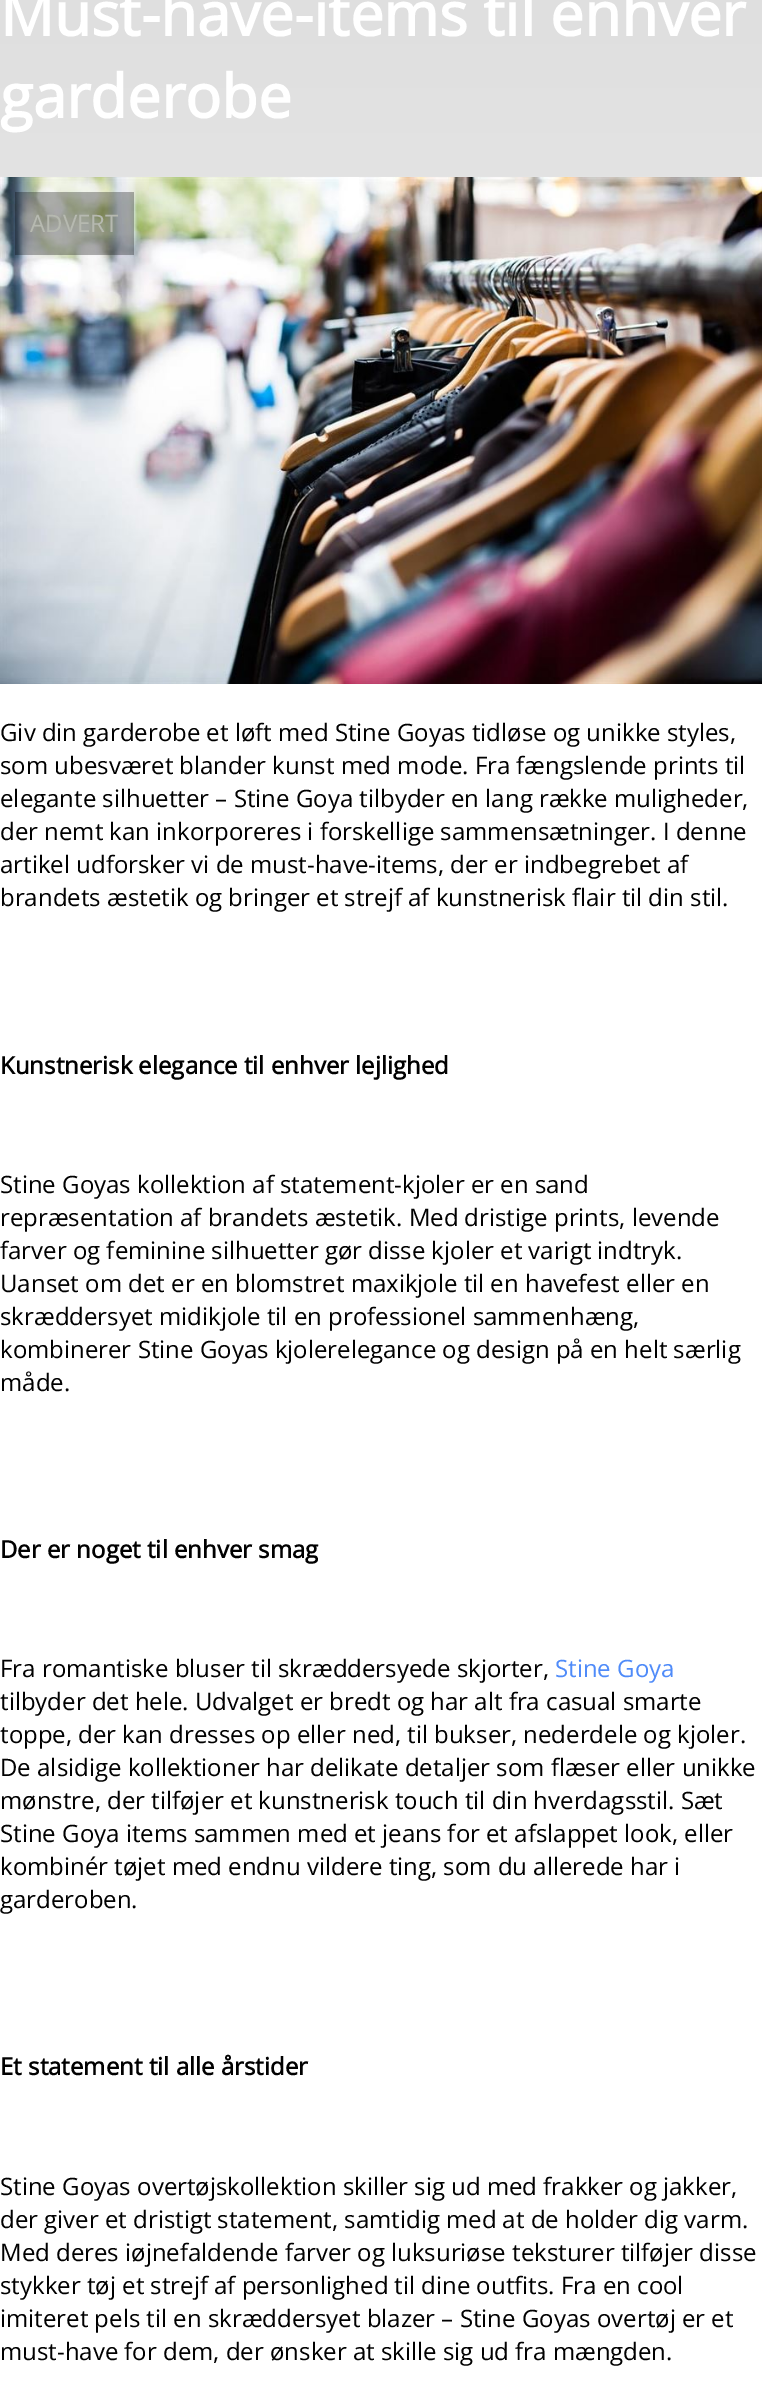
%!PS
<< /PageSize [762 2382] /PageUsesTransparency true >> setpagedevice
/alpha { dup .setfillconstantalpha .setstrokeconstantalpha } def
/picture { 5 dict begin { /h /w /y /x /name } { exch def } forall
  gsave x y translate w h scale
  w h 8 [w 0 0 h 0 0] name (r) file false 3 colorimage grestore end } def
0 .pushpdf14devicefilter
0 2382 translate 1 -1 scale
4 setmiterlimit
1 setgray
0 0 762 2382 rectfill
gsave newpath 0 0 moveto 762 0 lineto 762 177 lineto 0 177 lineto closepath clip newpath
<< /ShadingType 2 /ColorSpace /DeviceRGB /Coords [381 -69 381 681] /Extend [true true] /Function << /FunctionType 2 /Domain [0 1] /C0 [0.867 0.867 0.867] /C1 [0.933 0.933 0.933] /N 1 >> >> shfill grestore
/OpenSans-Bold [60 0 0 -60 0 0] selectfont
0 36 moveto (Must-have-items til enhver) show
0 118 moveto (garderobe) show
(img1.rgb) 0 177 762 507 picture
0.3 alpha
0 setgray
15 192 119 63 rectfill
/OpenSans-Regular [24 0 0 -24 0 0] selectfont
1 alpha
0.714 0.725 0.69 setrgbcolor
30 232 moveto (ADVERT) show
0 setgray
0 741 moveto (Giv din garderobe et løft med Stine Goyas tidløse og unikke styles,) show
0 774 moveto (som ubesværet blander kunst med mode. Fra fængslende prints til) show
0 807 moveto (elegante silhuetter – Stine Goya tilbyder en lang række muligheder,) show
0 840 moveto (der nemt kan inkorporeres i forskellige sammensætninger. I denne) show
0 873 moveto (artikel udforsker vi de must-have-items, der er indbegrebet af) show
0 906 moveto (brandets æstetik og bringer et strejf af kunstnerisk flair til din stil.) show
/OpenSans-Bold [24 0 0 -24 0 0] selectfont
0 1074 moveto (Kunstnerisk elegance til enhver lejlighed) show
/OpenSans-Regular [24 0 0 -24 0 0] selectfont
0 1193 moveto (Stine Goyas kollektion af statement-kjoler er en sand) show
0 1226 moveto (repræsentation af brandets æstetik. Med dristige prints, levende) show
0 1259 moveto (farver og feminine silhuetter gør disse kjoler et varigt indtryk.) show
0 1292 moveto (Uanset om det er en blomstret maxikjole til en havefest eller en) show
0 1325 moveto (skræddersyet midikjole til en professionel sammenhæng,) show
0 1358 moveto (kombinerer Stine Goyas kjolerelegance og design på en helt særlig) show
0 1391 moveto (måde.) show
/OpenSans-Bold [24 0 0 -24 0 0] selectfont
0 1558 moveto (Der er noget til enhver smag) show
/OpenSans-Regular [24 0 0 -24 0 0] selectfont
0 1677 moveto (Fra romantiske bluser til skræddersyede skjorter,) show
0.31 0.545 0.976 setrgbcolor
555 1677 moveto (Stine Goya) show
0 setgray
0 1710 moveto (tilbyder det hele. Udvalget er bredt og har alt fra casual smarte) show
0 1743 moveto (toppe, der kan dresses op eller ned, til bukser, nederdele og kjoler.) show
0 1776 moveto (De alsidige kollektioner har delikate detaljer som flæser eller unikke) show
0 1809 moveto (mønstre, der tilføjer et kunstnerisk touch til din hverdagsstil. Sæt) show
0 1842 moveto (Stine Goya items sammen med et jeans for et afslappet look, eller) show
0 1875 moveto (kombinér tøjet med endnu vildere ting, som du allerede har i) show
0 1908 moveto (garderoben.) show
/OpenSans-Bold [24 0 0 -24 0 0] selectfont
0 2075 moveto (Et statement til alle årstider) show
/OpenSans-Regular [24 0 0 -24 0 0] selectfont
0 2195 moveto (Stine Goyas overtøjskollektion skiller sig ud med frakker og jakker,) show
0 2228 moveto (der giver et dristigt statement, samtidig med at de holder dig varm.) show
0 2261 moveto (Med deres iøjnefaldende farver og luksuriøse teksturer tilføjer disse) show
0 2294 moveto (stykker tøj et strejf af personlighed til dine outfits. Fra en cool) show
0 2327 moveto (imiteret pels til en skræddersyet blazer – Stine Goyas overtøj er et) show
0 2360 moveto (must-have for dem, der ønsker at skille sig ud fra mængden.) show
.poppdf14devicefilter showpage
